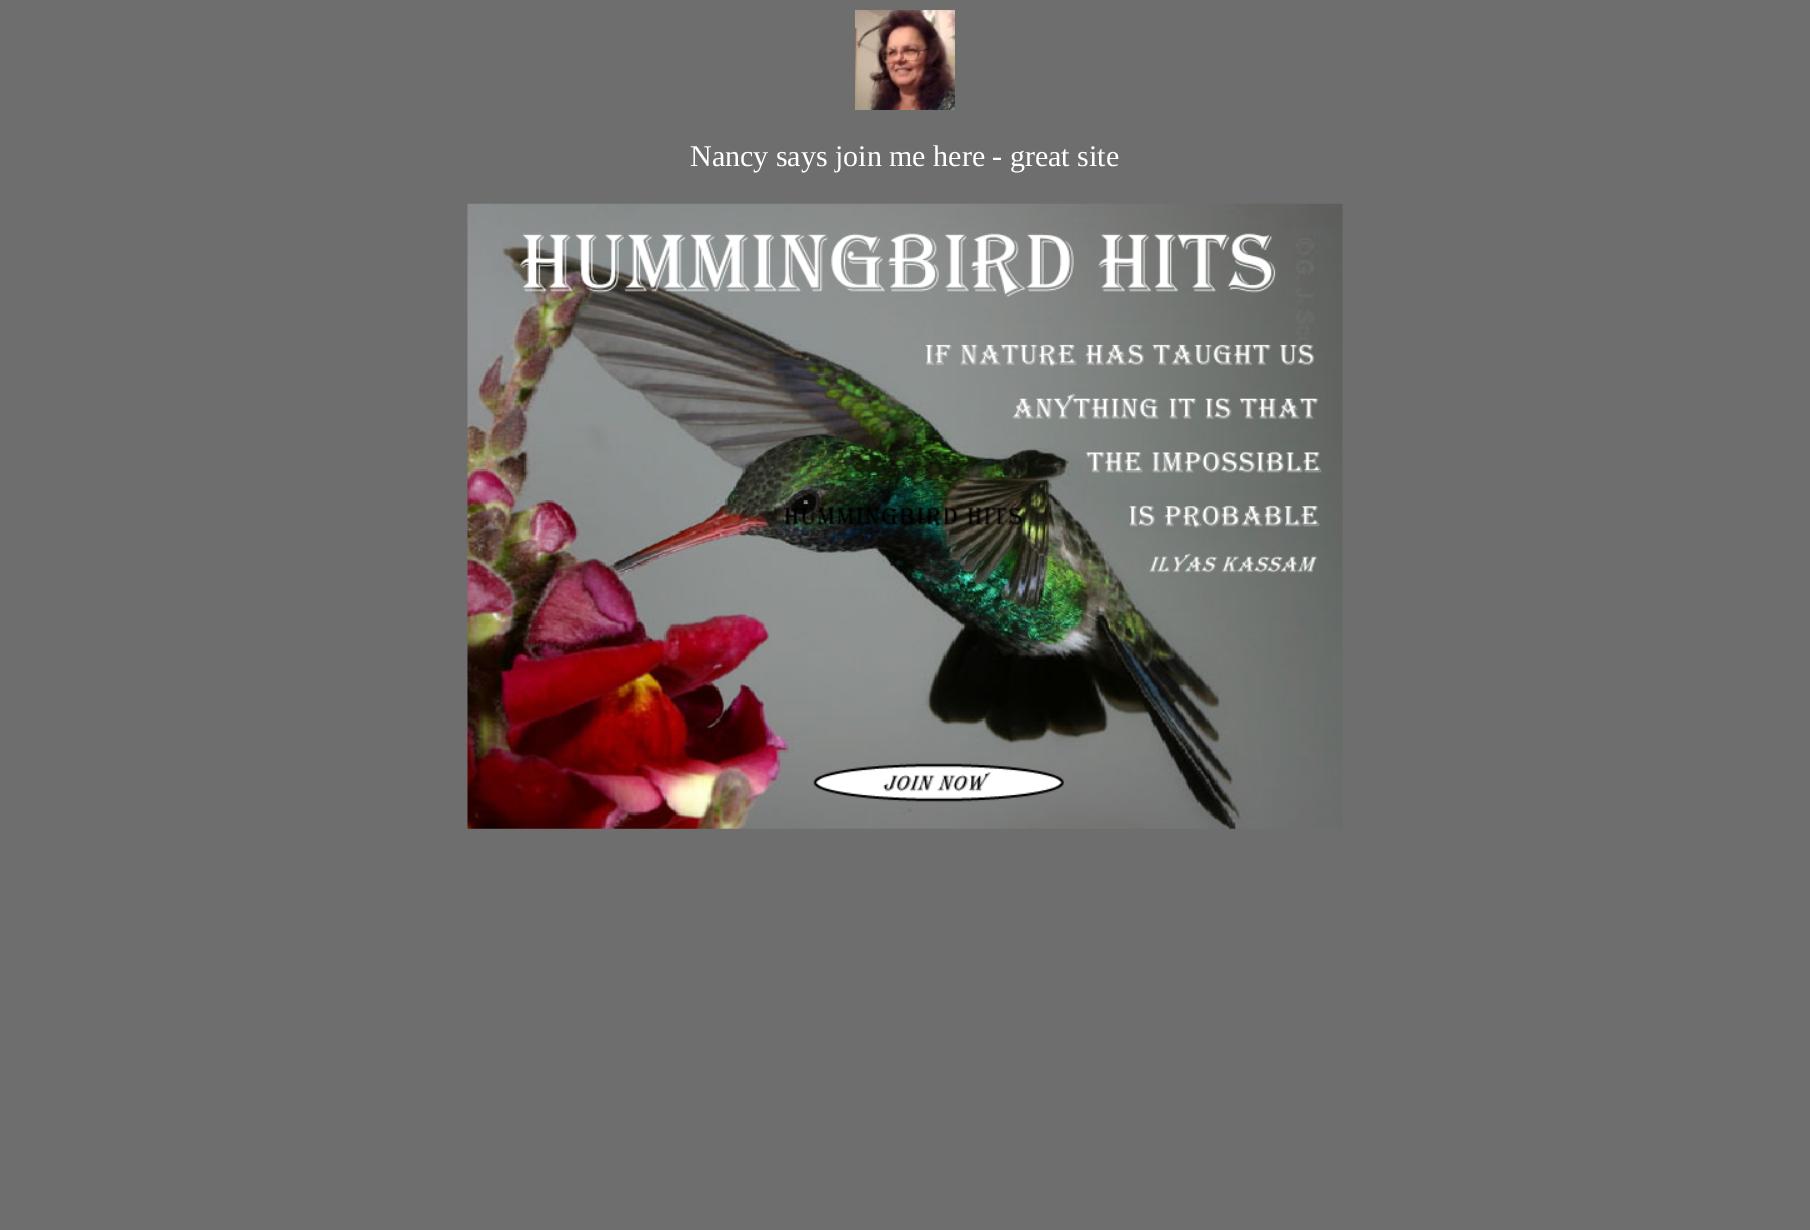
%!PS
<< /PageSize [1810 1230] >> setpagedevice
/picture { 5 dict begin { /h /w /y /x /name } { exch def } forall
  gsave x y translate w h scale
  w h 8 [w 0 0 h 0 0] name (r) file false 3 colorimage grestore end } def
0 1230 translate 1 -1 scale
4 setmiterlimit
0.431 setgray
0 0 1810 1230 rectfill
(img1.rgb) 855 10 100 100 picture
/LiberationSerif-Regular [30 0 0 -30 0 0] selectfont
1 setgray
690 166 moveto (Nancy says join me here - great site) show
(img2.rgb) 467 203 876 626 picture
showpage
